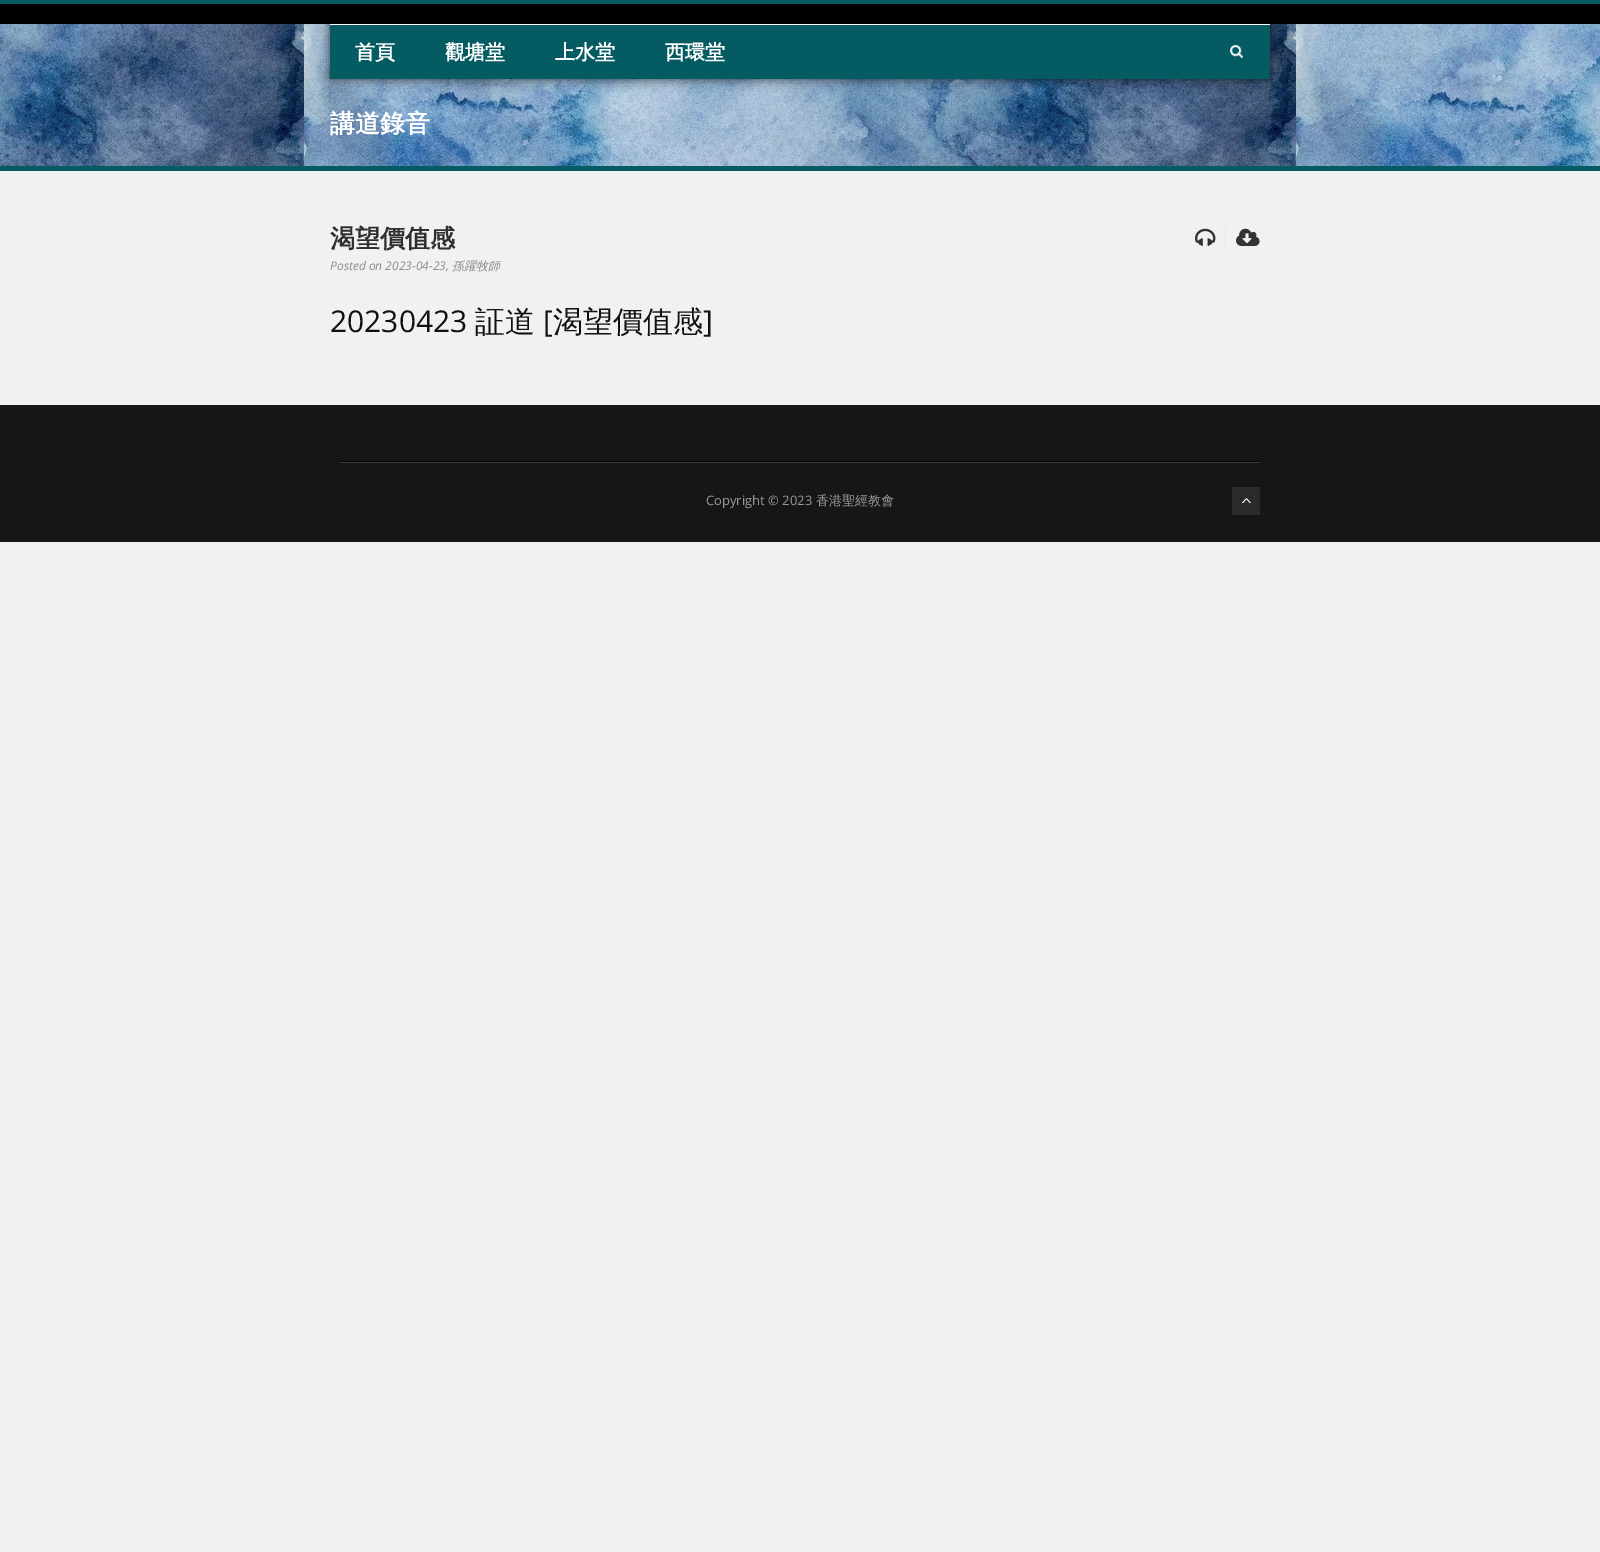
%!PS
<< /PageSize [1600 1552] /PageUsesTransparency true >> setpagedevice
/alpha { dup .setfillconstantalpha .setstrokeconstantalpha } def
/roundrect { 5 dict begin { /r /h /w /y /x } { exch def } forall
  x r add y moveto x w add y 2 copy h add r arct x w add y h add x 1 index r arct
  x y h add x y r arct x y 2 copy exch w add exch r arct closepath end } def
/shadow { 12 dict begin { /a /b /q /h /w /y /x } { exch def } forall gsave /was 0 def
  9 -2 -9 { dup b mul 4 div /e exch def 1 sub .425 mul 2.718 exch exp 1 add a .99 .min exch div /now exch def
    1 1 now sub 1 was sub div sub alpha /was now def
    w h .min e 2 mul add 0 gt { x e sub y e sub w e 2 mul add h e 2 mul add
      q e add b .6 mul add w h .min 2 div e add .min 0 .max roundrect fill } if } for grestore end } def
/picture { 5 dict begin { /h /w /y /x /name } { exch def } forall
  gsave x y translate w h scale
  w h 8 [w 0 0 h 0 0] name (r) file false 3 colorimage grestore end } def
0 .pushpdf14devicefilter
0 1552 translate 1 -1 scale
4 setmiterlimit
0.945 setgray
0 0 1600 1552 rectfill
(img1.rgb) 0 24 1600 142 picture
0 setgray
330 24 940 55 0 6 0.7 shadow
0 4 1600 20 rectfill
0.016 0.357 0.38 setrgbcolor
0 0 1600 4 rectfill
0.016 0.357 0.384 setrgbcolor
330 25 940 54 rectfill
1 setgray
330 24 940 1 rectfill
/WenQuanYiZenHei-Bold [20 0 0 -20 0 0] selectfont
355 59 moveto (首頁) show
445 59 moveto (觀塘堂) show
555 59 moveto (上水堂) show
665 59 moveto (西環堂) show
(img2.rgb) 1230 45 13 13 picture
/WenQuanYiZenHei-Bold [25 0 0 -25 0 0] selectfont
330 132 moveto (講道錄音) show
0.016 0.357 0.384 setrgbcolor
0 166 1600 5 rectfill
0.188 setgray
330 247 moveto (渴望價值感) show
/OpenSans-Italic [12 0 0 -12 0 0] selectfont
0.549 setgray
330 270 moveto (Posted on 2023-04-23,) show
/WenQuanYiZenHei-MediumItalic [12 0 0 -12 0 0] selectfont
452 270 moveto (孫躍牧師) show
(img3.rgb) 1195 228 21 18 picture
0.898 setgray
1225 226 1 24 rectfill
(img4.rgb) 1236 228 24 18 picture
/OpenSans-Regular [30 0 0 -30 0 0] selectfont
0.067 setgray
330 332 moveto (20230423) show
/WenQuanYiZenHei-Medium [30 0 0 -30 0 0] selectfont
475 332 moveto (証道) show
/OpenSans-Regular [30 0 0 -30 0 0] selectfont
543 332 moveto ([) show
/WenQuanYiZenHei-Medium [30 0 0 -30 0 0] selectfont
553 332 moveto (渴望價值感) show
/OpenSans-Regular [30 0 0 -30 0 0] selectfont
703 332 moveto (]) show
0.086 setgray
0 405 1600 137 rectfill
0.024 setgray
340 461 920 1 rectfill
0.243 setgray
340 462 920 1 rectfill
/OpenSans-Regular [13 0 0 -13 0 0] selectfont
0.6 setgray
706 505 moveto (Copyright © 2023) show
/WenQuanYiZenHei-Medium [13 0 0 -13 0 0] selectfont
816 505 moveto (香港聖經教會) show
0.169 setgray
1232 487 28 28 rectfill
(img5.rgb) 1241 498 10 5 picture
.poppdf14devicefilter showpage
